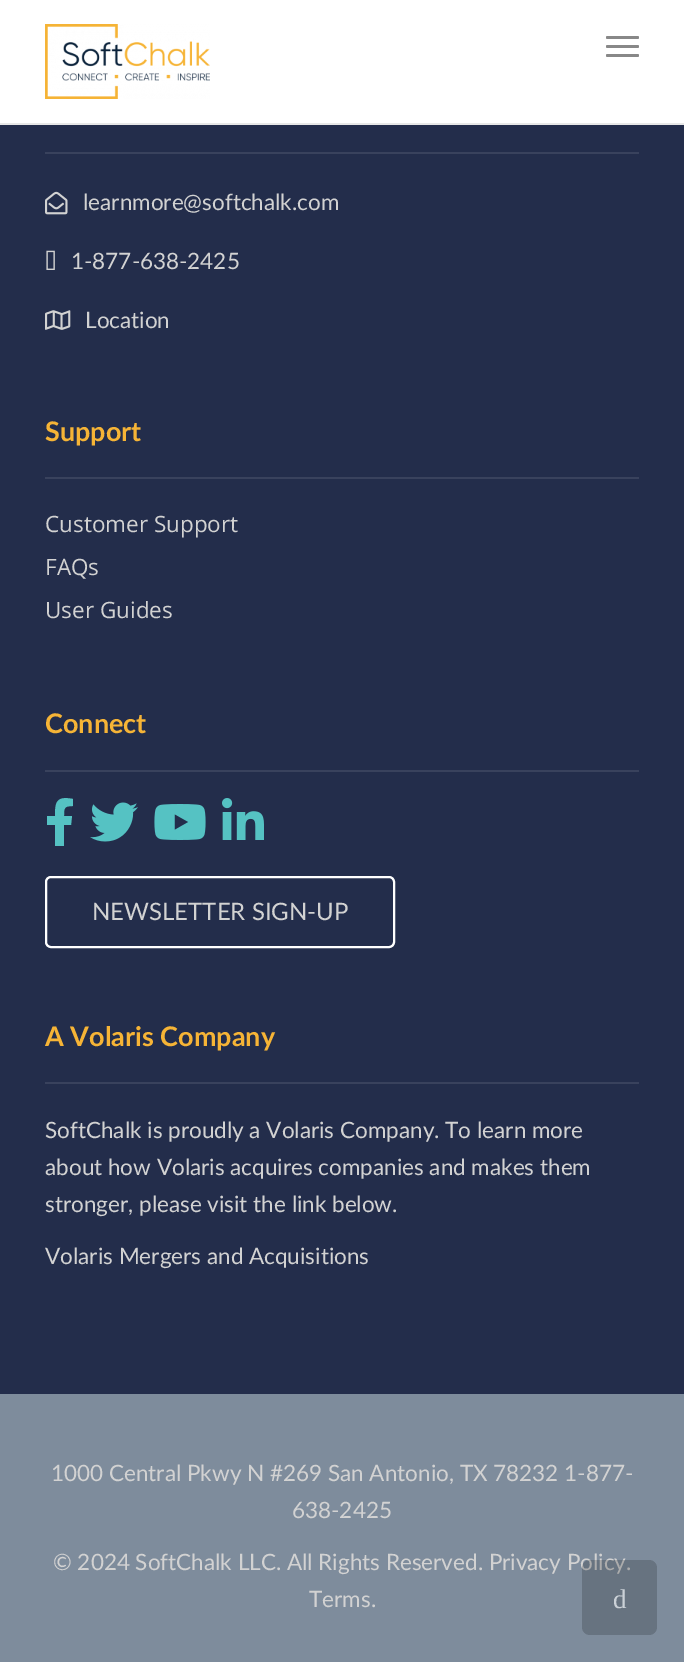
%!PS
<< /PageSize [684 1662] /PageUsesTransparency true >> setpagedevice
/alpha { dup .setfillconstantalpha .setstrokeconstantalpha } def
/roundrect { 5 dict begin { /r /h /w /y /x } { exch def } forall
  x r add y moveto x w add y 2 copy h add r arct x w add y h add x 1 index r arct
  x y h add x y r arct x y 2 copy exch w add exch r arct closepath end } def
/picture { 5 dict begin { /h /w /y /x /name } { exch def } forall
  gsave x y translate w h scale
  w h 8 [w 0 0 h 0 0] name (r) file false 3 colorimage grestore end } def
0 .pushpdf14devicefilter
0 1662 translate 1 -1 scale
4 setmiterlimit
0.137 0.176 0.294 setrgbcolor
0 0 684 1662 rectfill
1 setgray
0 0 684 123 rectfill
0.906 setgray
0 123 684 2 rectfill
(img1.rgb) 45 24 165 75 picture
0.533 setgray
606 36 33 3 1.5 roundrect fill
606 45 33 3 1.5 roundrect fill
606 54 33 3 1.5 roundrect fill
0.224 0.259 0.365 setrgbcolor
45 152 594 2 rectfill
(img2.rgb) 45 191 23 24 picture
/Lato-Regular [22.5 0 0 -22.5 0 0] selectfont
0.824 setgray
83 210 moveto (learnmore@softchalk.com) show
(img3.rgb) 46 250 9 20 picture
71 269 moveto (1-877-638-2425) show
(img4.rgb) 45 310 26 20 picture
85 328 moveto (Location) show
0.224 0.259 0.365 setrgbcolor
45 477 594 2 rectfill
/Lato-Bold [27 0 0 -27 0 0] selectfont
0.965 0.706 0.212 setrgbcolor
45 441 moveto (Support) show
/OpenSans-Regular [22.5 0 0 -22.5 0 0] selectfont
0.824 setgray
45 532 moveto (Customer Support) show
45 575 moveto (FAQs) show
45 618 moveto (User Guides) show
0.224 0.259 0.365 setrgbcolor
45 770 594 2 rectfill
/Lato-Bold [27 0 0 -27 0 0] selectfont
0.965 0.706 0.212 setrgbcolor
45 733 moveto (Connect) show
0.333 0.761 0.765 setrgbcolor
newpath 71 825 moveto 64 825 lineto 64 846 lineto 55 846 lineto 55 825 lineto 47 825 lineto 47 816 lineto 55 816 lineto 55 801 57 796 73 799 curveto 73 806 lineto 64 806 64 808 64 816 curveto 72 816 lineto closepath fill
(img5.rgb) 90 802 48 40 picture
(img6.rgb) 154 804 52 36 picture
(img7.rgb) 222 798 42 42 picture
1 setgray
2 setlinewidth
46 877 348 70 5 roundrect stroke
/Lato-Regular [24 0 0 -24 0 0] selectfont
0.824 setgray
92 920 moveto (NEWSLETTER SIGN-UP) show
0.224 0.259 0.365 setrgbcolor
45 1082 594 2 rectfill
/Lato-Bold [27 0 0 -27 0 0] selectfont
0.965 0.706 0.212 setrgbcolor
45 1046 moveto (A Volaris Company) show
/Lato-Regular [22.5 0 0 -22.5 0 0] selectfont
0.824 setgray
45 1138 moveto (SoftChalk is proudly a Volaris Company. To learn more) show
45 1175 moveto (about how Volaris acquires companies and makes them) show
45 1212 moveto (stronger, please visit the link below.) show
45 1264 moveto (Volaris Mergers and Acquisitions) show
0.494 0.549 0.612 setrgbcolor
0 1394 684 268 rectfill
0.824 setgray
51 1481 moveto (1000 Central Pkwy N #269 San Antonio, TX 78232 1-877-) show
292 1518 moveto (638-2425) show
53 1570 moveto (© 2024 SoftChalk LLC. All Rights Reserved. Privacy Policy.) show
309 1607 moveto (Terms.) show
0.18 alpha
0 setgray
582 1560 75 75 8 roundrect fill
/LiberationSerif-Regular [27 0 0 -27 0 0] selectfont
1 alpha
0.796 0.82 0.843 setrgbcolor
613 1608 moveto (d) show
.poppdf14devicefilter showpage
